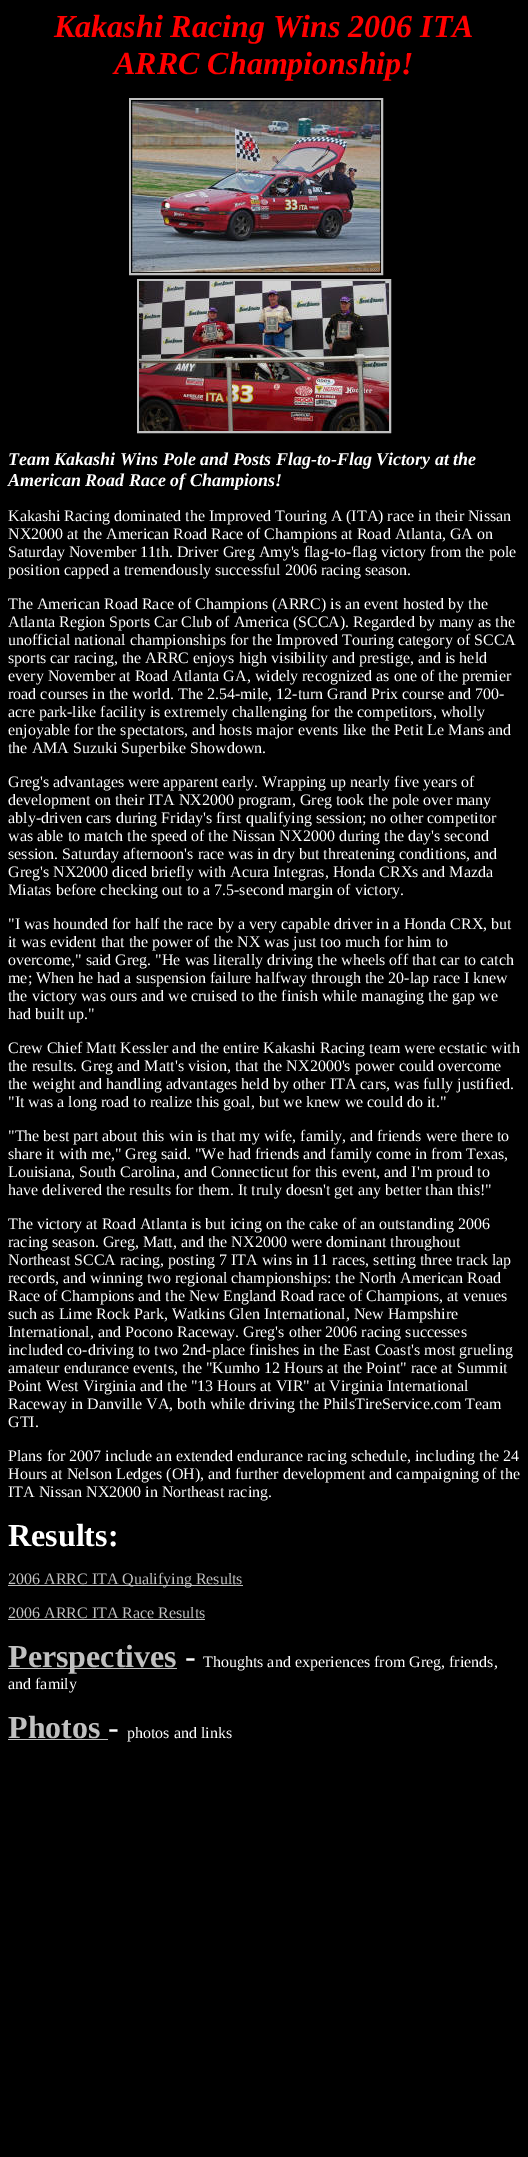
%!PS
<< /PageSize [528 2157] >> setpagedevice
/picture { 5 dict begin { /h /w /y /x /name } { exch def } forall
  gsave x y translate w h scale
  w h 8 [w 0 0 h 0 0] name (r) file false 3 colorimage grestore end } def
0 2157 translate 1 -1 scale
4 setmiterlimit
0 setgray
0 0 528 2157 rectfill
/LiberationSerif-BoldItalic [32 0 0 -32 0 0] selectfont
1 0 0 setrgbcolor
54 37 moveto (Kakashi Racing Wins 2006 ITA) show
114 74 moveto (ARRC Championship!) show
0.753 setgray
2 setlinewidth
130 99 252 175 rectstroke
(img1.rgb) 131 100 250 173 picture
138 280 252 152 rectstroke
(img2.rgb) 139 281 250 150 picture
/LiberationSerif-BoldItalic [18 0 0 -18 0 0] selectfont
1 setgray
8 465 moveto (Team Kakashi Wins Pole and Posts Flag-to-Flag Victory at the) show
8 486 moveto (American Road Race of Champions!) show
/LiberationSerif-Regular [16 0 0 -16 0 0] selectfont
8 521 moveto (Kakashi Racing dominated the Improved Touring A \(ITA\) race in their Nissan) show
8 539 moveto (NX2000 at the American Road Race of Champions at Road Atlanta, GA on) show
8 557 moveto (Saturday November 11th. Driver Greg Amy's flag-to-flag victory from the pole) show
8 575 moveto (position capped a tremendously successful 2006 racing season.) show
8 609 moveto (The American Road Race of Champions \(ARRC\) is an event hosted by the) show
8 627 moveto (Atlanta Region Sports Car Club of America \(SCCA\). Regarded by many as the) show
8 645 moveto (unofficial national championships for the Improved Touring category of SCCA) show
8 663 moveto (sports car racing, the ARRC enjoys high visibility and prestige, and is held) show
8 681 moveto (every November at Road Atlanta GA, widely recognized as one of the premier) show
8 699 moveto (road courses in the world. The 2.54-mile, 12-turn Grand Prix course and 700-) show
8 717 moveto (acre park-like facility is extremely challenging for the competitors, wholly) show
8 735 moveto (enjoyable for the spectators, and hosts major events like the Petit Le Mans and) show
8 753 moveto (the AMA Suzuki Superbike Showdown.) show
8 787 moveto (Greg's advantages were apparent early. Wrapping up nearly five years of) show
8 805 moveto (development on their ITA NX2000 program, Greg took the pole over many) show
8 823 moveto (ably-driven cars during Friday's first qualifying session; no other competitor) show
8 841 moveto (was able to match the speed of the Nissan NX2000 during the day's second) show
8 859 moveto (session. Saturday afternoon's race was in dry but threatening conditions, and) show
8 877 moveto (Greg's NX2000 diced briefly with Acura Integras, Honda CRXs and Mazda) show
8 895 moveto (Miatas before checking out to a 7.5-second margin of victory.) show
8 929 moveto ("I was hounded for half the race by a very capable driver in a Honda CRX, but) show
8 947 moveto (it was evident that the power of the NX was just too much for him to) show
8 965 moveto (overcome," said Greg. "He was literally driving the wheels off that car to catch) show
8 983 moveto (me; When he had a suspension failure halfway through the 20-lap race I knew) show
8 1001 moveto (the victory was ours and we cruised to the finish while managing the gap we) show
8 1019 moveto (had built up.") show
8 1053 moveto (Crew Chief Matt Kessler and the entire Kakashi Racing team were ecstatic with) show
8 1071 moveto (the results. Greg and Matt's vision, that the NX2000's power could overcome) show
8 1089 moveto (the weight and handling advantages held by other ITA cars, was fully justified.) show
8 1107 moveto ("It was a long road to realize this goal, but we knew we could do it.") show
8 1141 moveto ("The best part about this win is that my wife, family, and friends were there to) show
8 1159 moveto (share it with me," Greg said. "We had friends and family come in from Texas,) show
8 1177 moveto (Louisiana, South Carolina, and Connecticut for this event, and I'm proud to) show
8 1195 moveto (have delivered the results for them. It truly doesn't get any better than this!") show
8 1229 moveto (The victory at Road Atlanta is but icing on the cake of an outstanding 2006) show
8 1247 moveto (racing season. Greg, Matt, and the NX2000 were dominant throughout) show
8 1265 moveto (Northeast SCCA racing, posting 7 ITA wins in 11 races, setting three track lap) show
8 1283 moveto (records, and winning two regional championships: the North American Road) show
8 1301 moveto (Race of Champions and the New England Road race of Champions, at venues) show
8 1319 moveto (such as Lime Rock Park, Watkins Glen International, New Hampshire) show
8 1337 moveto (International, and Pocono Raceway. Greg's other 2006 racing successes) show
8 1355 moveto (included co-driving to two 2nd-place finishes in the East Coast's most grueling) show
8 1373 moveto (amateur endurance events, the "Kumho 12 Hours at the Point" race at Summit) show
8 1391 moveto (Point West Virginia and the "13 Hours at VIR" at Virginia International) show
8 1409 moveto (Raceway in Danville VA, both while driving the PhilsTireService.com Team) show
8 1427 moveto (GTI.) show
8 1461 moveto (Plans for 2007 include an extended endurance racing schedule, including the 24) show
8 1479 moveto (Hours at Nelson Ledges \(OH\), and further development and campaigning of the) show
8 1497 moveto (ITA Nissan NX2000 in Northeast racing.) show
/LiberationSerif-Bold [32 0 0 -32 0 0] selectfont
8 1546 moveto (Results:) show
0.753 setgray
8 1585 235 1 rectfill
/LiberationSerif-Regular [16 0 0 -16 0 0] selectfont
8 1584 moveto (2006 ARRC ITA Qualifying Results) show
8 1618 moveto (2006 ARRC ITA Race Results) show
8 1619 197 1 rectfill
8 1668 169 1 rectfill
/LiberationSerif-Bold [32 0 0 -32 0 0] selectfont
8 1667 moveto (Perspectives) show
/LiberationSerif-Regular [32 0 0 -32 0 0] selectfont
1 setgray
185 1667 moveto (-) show
/LiberationSerif-Regular [16 0 0 -16 0 0] selectfont
203 1667 moveto (Thoughts and experiences from Greg, friends,) show
8 1689 moveto (and family) show
/LiberationSerif-Bold [32 0 0 -32 0 0] selectfont
0.753 setgray
8 1738 moveto (Photos) show
8 1739 100 1 rectfill
/LiberationSerif-Regular [32 0 0 -32 0 0] selectfont
1 setgray
108 1738 moveto (-) show
/LiberationSerif-Regular [16 0 0 -16 0 0] selectfont
127 1738 moveto (photos and links) show
showpage
